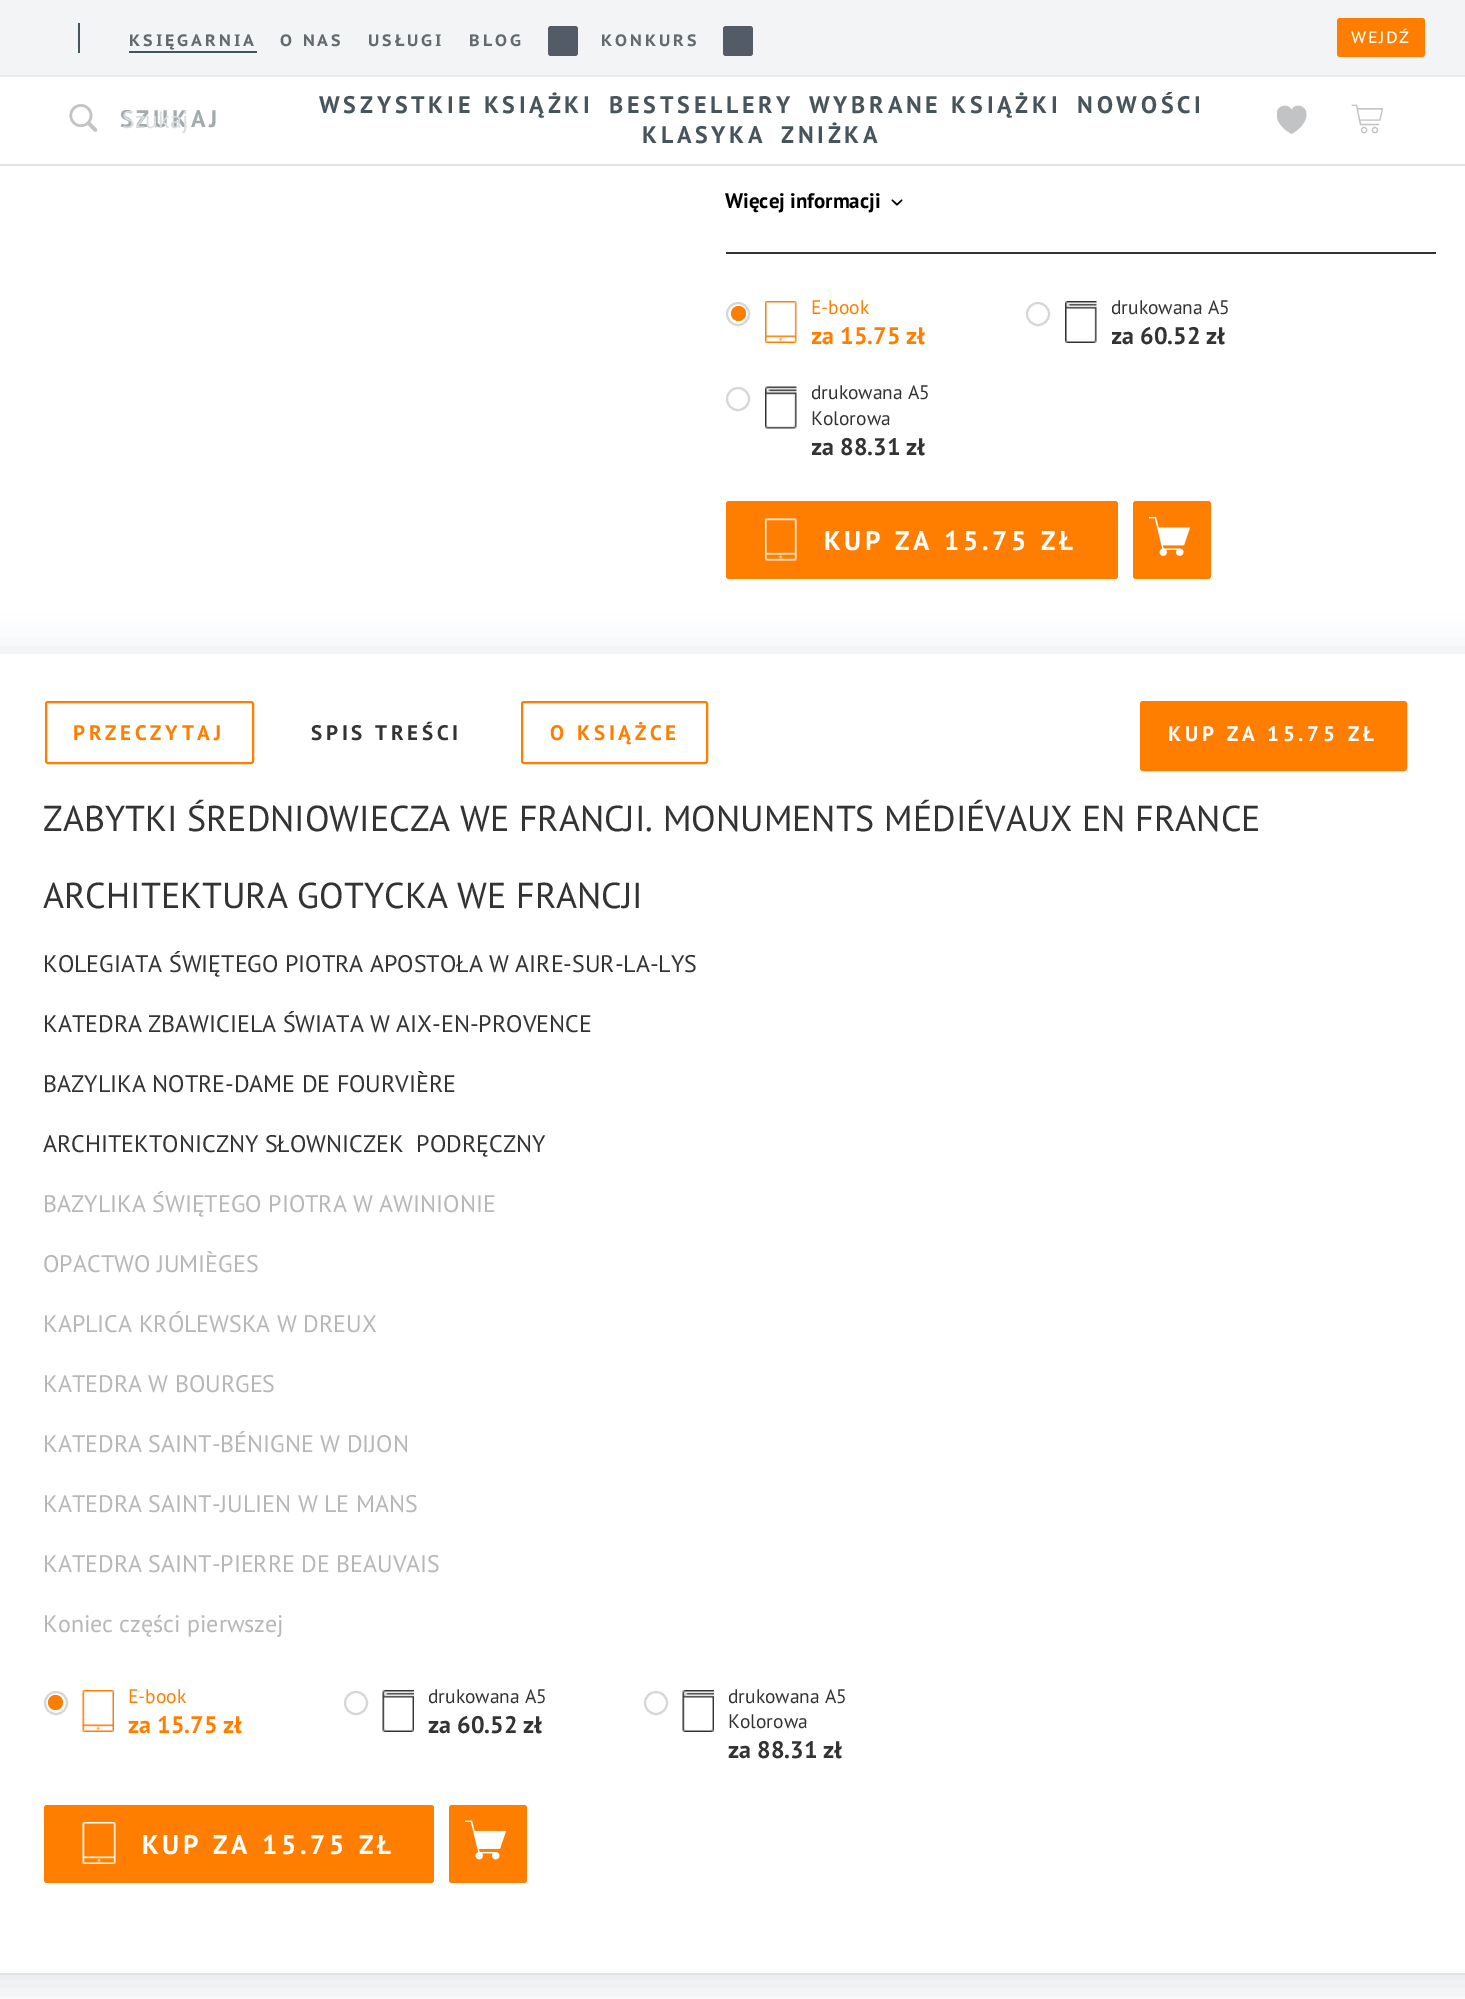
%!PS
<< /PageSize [1465 1999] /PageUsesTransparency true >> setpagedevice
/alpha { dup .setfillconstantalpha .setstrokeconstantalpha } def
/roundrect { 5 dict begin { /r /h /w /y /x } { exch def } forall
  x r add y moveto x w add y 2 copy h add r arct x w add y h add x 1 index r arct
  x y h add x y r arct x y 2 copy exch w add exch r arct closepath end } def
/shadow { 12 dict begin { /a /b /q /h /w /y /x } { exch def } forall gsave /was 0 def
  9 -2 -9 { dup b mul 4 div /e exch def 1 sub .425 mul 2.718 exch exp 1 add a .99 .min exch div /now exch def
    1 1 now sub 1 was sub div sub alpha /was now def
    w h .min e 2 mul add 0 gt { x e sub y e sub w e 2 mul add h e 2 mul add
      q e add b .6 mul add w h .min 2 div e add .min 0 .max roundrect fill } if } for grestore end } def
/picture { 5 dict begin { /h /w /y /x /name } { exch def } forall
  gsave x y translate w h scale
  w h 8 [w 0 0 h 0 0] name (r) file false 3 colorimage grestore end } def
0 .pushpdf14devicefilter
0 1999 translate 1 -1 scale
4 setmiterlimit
1 setgray
0 0 1465 1999 rectfill
0.914 0.925 0.929 setrgbcolor
newpath 0 75 moveto 0 77 lineto 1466 77 lineto 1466 2 lineto 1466 75 lineto closepath fill
0.949 0.957 0.961 setrgbcolor
0 0 1465 75 rectfill
0.275 0.329 0.357 setrgbcolor
78 23 2 30 rectfill
/PTSansCaption-Bold [16.5 0 0 -16.5 0 0] selectfont
0.388 0.416 0.427 setrgbcolor
129 46 moveto 3 0 (KSIĘGARNIA) ashow
0.275 0.329 0.357 setrgbcolor
129 51 128 2 rectfill
0.388 0.416 0.427 setrgbcolor
280 46 moveto 3 0 (O NAS) ashow
368 46 moveto 3 0 (USŁUGI) ashow
469 46 moveto 3 0 (BLOG) ashow
0.325 0.361 0.4 setrgbcolor
548 26 30 30 3 roundrect fill
0.388 0.416 0.427 setrgbcolor
601 46 moveto 3 0 (KONKURS) ashow
0.325 0.361 0.4 setrgbcolor
723 26 30 30 3 roundrect fill
1 0.494 0 setrgbcolor
1337 18 88 39 3 roundrect fill
/PTSansCaption-Regular [16.5 0 0 -16.5 0 0] selectfont
1 setgray
1351 43 moveto 1.5 0 (WEJDŹ) ashow
0.875 0.89 0.898 setrgbcolor
0 164 1465 2 rectfill
(img1.rgb) 69 104 29 28 picture
/PTSans-Bold [24 0 0 -24 0 0] selectfont
0.639 0.667 0.678 setrgbcolor
120 127 moveto 3.75 0 (SZUKAJ) ashow
/PTSans-Regular [24 0 0 -24 0 0] selectfont
0.855 0.867 0.871 setrgbcolor
122 128 moveto (Szukaj) show
/PTSans-Bold [24 0 0 -24 0 0] selectfont
0.275 0.329 0.357 setrgbcolor
319 113 moveto 3.75 0 (WSZYSTKIE KSIĄŻKI) ashow
609 113 moveto 3.75 0 (BESTSELLERY) ashow
809 113 moveto 3.75 0 (WYBRANE KSIĄŻKI) ashow
1077 113 moveto 3.75 0 (NOWOŚCI) ashow
642 143 moveto 3.75 0 (KLASYKA) ashow
781 143 moveto 3.75 0 (ZNIŻKA) ashow
(img2.rgb) 1277 105 30 29 picture
(img3.rgb) 1351 104 32 30 picture
0.2 setgray
726 252 710 2 rectfill
/PTSans-Bold [21 0 0 -21 0 0] selectfont
0 setgray
725 208 moveto (Więcej informacji) show
(img4.rgb) 891 199 12 7 picture
0.835 0.839 0.843 setrgbcolor
2 setlinewidth
newpath 738 314 11 0 360 arc closepath stroke
1 0.494 0 setrgbcolor
newpath 738.5 313.5 7.5 0 360 arc closepath fill
(img5.rgb) 765 301 32 42 picture
/PTSans-Regular [19.5 0 0 -19.5 0 0] selectfont
811 314 moveto (E-book) show
gsave
812 294 184 56 rectclip
/PTSans-Bold [24 0 0 -24 0 0] selectfont
811 344 moveto (za) show
grestore
/PTSans-Bold [24 0 0 -24 0 0] selectfont
840 344 moveto (15.75 zł) show
0.835 0.839 0.843 setrgbcolor
newpath 1038 314 11 0 360 arc closepath stroke
(img6.rgb) 1065 301 32 42 picture
/PTSans-Regular [19.5 0 0 -19.5 0 0] selectfont
0.2 setgray
1111 314 moveto (drukowana A5) show
gsave
1112 294 184 56 rectclip
/PTSans-Bold [24 0 0 -24 0 0] selectfont
1111 344 moveto (za) show
grestore
/PTSans-Bold [24 0 0 -24 0 0] selectfont
1140 344 moveto (60.52 zł) show
0.835 0.839 0.843 setrgbcolor
newpath 738 399 11 0 360 arc closepath stroke
(img7.rgb) 765 386 32 43 picture
/PTSans-Regular [19.5 0 0 -19.5 0 0] selectfont
0.2 setgray
811 399 moveto (drukowana A5) show
811 425 moveto (Kolorowa) show
gsave
812 380 184 81 rectclip
/PTSans-Bold [24 0 0 -24 0 0] selectfont
811 455 moveto (za) show
grestore
/PTSans-Bold [24 0 0 -24 0 0] selectfont
840 455 moveto (88.31 zł) show
1 0.494 0 setrgbcolor
726 501 392 78 3 roundrect fill
(img8.rgb) 765 518 32 43 picture
/PTSans-Bold [27 0 0 -27 0 0] selectfont
1 setgray
824 550 moveto 3.75 0 (KUP ZA 15.75 ZŁ) ashow
1 0.494 0 setrgbcolor
1133 501 78 78 3 roundrect fill
(img9.rgb) 1149 516 42 40 picture
0.427 0.498 0.529 setrgbcolor
-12 650 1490 1342 0 16 0.15 shadow
1 setgray
0 654 1465 1319 rectfill
1 0.494 0 setrgbcolor
46 702 207 61 2 roundrect stroke
/PTSans-Bold [21 0 0 -21 0 0] selectfont
73 740 moveto 3.75 0 (PRZECZYTAJ) ashow
0.2 setgray
311 740 moveto 3.75 0 (SPIS TREŚCI) ashow
1 0.494 0 setrgbcolor
522 702 185 61 2 roundrect stroke
550 740 moveto 3.75 0 (O KSIĄŻCE) ashow
1141 702 265 68 2 roundrect gsave fill grestore
stroke
1 setgray
1168 741 moveto 3.75 0 (KUP ZA 15.75 ZŁ) ashow
/PTSans-Regular [36 0 0 -36 0 0] selectfont
0.2 setgray
43 831 moveto (ZABYTKI ŚREDNIOWIECZA WE FRANCJI. MONUMENTS MÉDIÉVAUX EN FRANCE) show
43 908 moveto (ARCHITEKTURA GOTYCKA WE FRANCJI) show
/PTSans-Regular [24 0 0 -24 0 0] selectfont
43 972 moveto (KOLEGIATA ŚWIĘTEGO PIOTRA APOSTOŁA W AIRE-SUR-LA-LYS) show
43 1032 moveto (KATEDRA ZBAWICIELA ŚWIATA W AIX-EN-PROVENCE) show
43 1092 moveto (BAZYLIKA NOTRE-DAME DE FOURVIÈRE) show
43 1152 moveto (ARCHITEKTONICZNY SŁOWNICZEK  PODRĘCZNY) show
0.718 setgray
43 1212 moveto (BAZYLIKA ŚWIĘTEGO PIOTRA W AWINIONIE) show
43 1272 moveto (OPACTWO JUMIÈGES) show
43 1332 moveto (KAPLICA KRÓLEWSKA W DREUX) show
43 1392 moveto (KATEDRA W BOURGES) show
43 1452 moveto (KATEDRA SAINT-BÉNIGNE W DIJON) show
43 1512 moveto (KATEDRA SAINT-JULIEN W LE MANS) show
43 1572 moveto (KATEDRA SAINT-PIERRE DE BEAUVAIS) show
43 1632 moveto (Koniec części pierwszej) show
0.835 0.839 0.843 setrgbcolor
newpath 56 1703 11 0 360 arc closepath stroke
1 0.494 0 setrgbcolor
newpath 55.5 1702.5 7.5 0 360 arc closepath fill
(img10.rgb) 82 1690 32 42 picture
/PTSans-Regular [19.5 0 0 -19.5 0 0] selectfont
128 1703 moveto (E-book) show
/PTSans-Bold [24 0 0 -24 0 0] selectfont
128 1733 moveto (za 15.75 zł) show
0.835 0.839 0.843 setrgbcolor
newpath 356 1703 11 0 360 arc closepath stroke
(img11.rgb) 382 1690 32 42 picture
/PTSans-Regular [19.5 0 0 -19.5 0 0] selectfont
0.2 setgray
428 1703 moveto (drukowana A5) show
/PTSans-Bold [24 0 0 -24 0 0] selectfont
428 1733 moveto (za 60.52 zł) show
0.835 0.839 0.843 setrgbcolor
newpath 656 1703 11 0 360 arc closepath stroke
(img11.rgb) 682 1690 32 42 picture
/PTSans-Regular [19.5 0 0 -19.5 0 0] selectfont
0.2 setgray
728 1703 moveto (drukowana A5) show
728 1728 moveto (Kolorowa) show
/PTSans-Bold [24 0 0 -24 0 0] selectfont
728 1758 moveto (za 88.31 zł) show
1 0.494 0 setrgbcolor
44 1805 390 78 3 roundrect fill
(img12.rgb) 82 1822 34 42 picture
/PTSans-Bold [27 0 0 -27 0 0] selectfont
1 setgray
142 1854 moveto 3.75 0 (KUP ZA 15.75 ZŁ) ashow
1 0.494 0 setrgbcolor
449 1805 78 78 3 roundrect fill
(img13.rgb) 465 1820 42 40 picture
0.875 0.89 0.898 setrgbcolor
0 1973 1465 2 rectfill
.poppdf14devicefilter showpage
